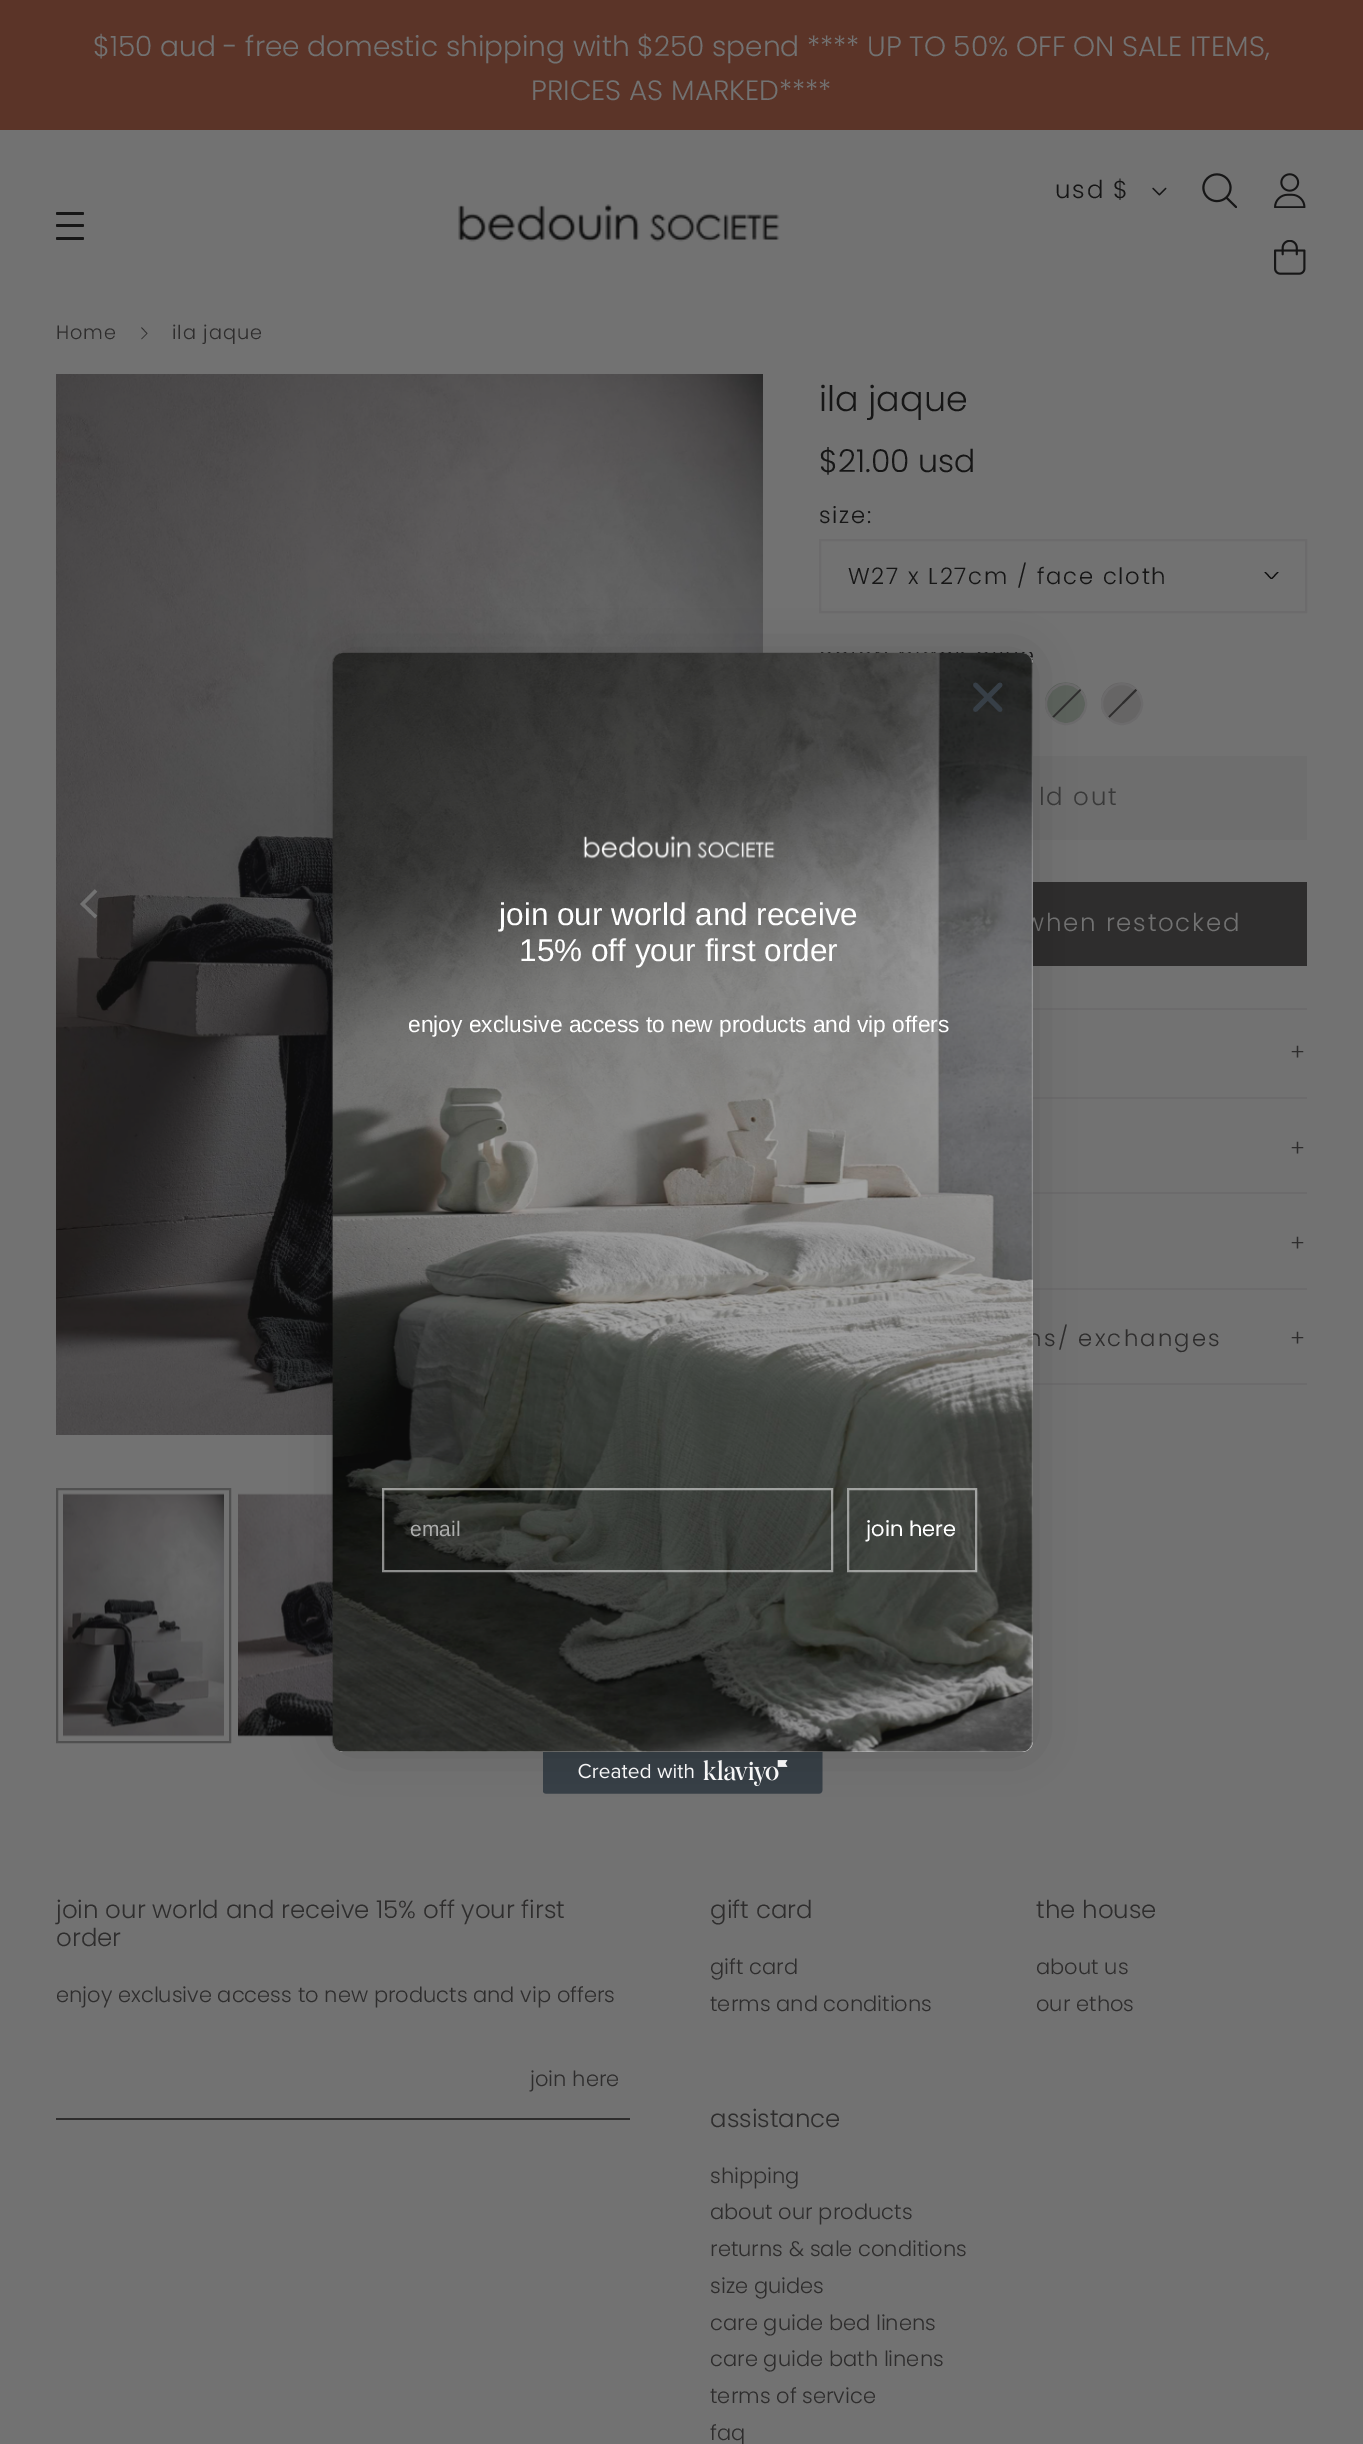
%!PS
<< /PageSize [1363 2444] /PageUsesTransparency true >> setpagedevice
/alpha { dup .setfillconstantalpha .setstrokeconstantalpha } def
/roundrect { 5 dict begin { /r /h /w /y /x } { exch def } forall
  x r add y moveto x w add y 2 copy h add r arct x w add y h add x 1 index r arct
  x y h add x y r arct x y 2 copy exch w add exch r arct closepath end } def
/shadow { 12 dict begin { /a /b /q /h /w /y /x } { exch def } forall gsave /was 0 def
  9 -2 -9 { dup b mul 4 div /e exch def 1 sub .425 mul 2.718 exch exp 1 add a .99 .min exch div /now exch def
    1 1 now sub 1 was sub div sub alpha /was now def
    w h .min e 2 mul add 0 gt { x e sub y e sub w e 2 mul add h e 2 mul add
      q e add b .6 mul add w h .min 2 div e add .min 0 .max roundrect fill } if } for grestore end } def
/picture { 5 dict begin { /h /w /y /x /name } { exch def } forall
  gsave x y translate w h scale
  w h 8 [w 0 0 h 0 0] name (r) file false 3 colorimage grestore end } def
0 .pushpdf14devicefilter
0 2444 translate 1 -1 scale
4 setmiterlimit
0.447 setgray
0 0 1363 2444 rectfill
0.357 0.204 0.157 setrgbcolor
0 0 1363 130 rectfill
/Poppins-Light [28 0 0 -28 0 0] selectfont
0.447 setgray
93 56 moveto ($150 aud - free domestic shipping with $250 spend **** UP TO 50% OFF ON SALE ITEMS,) show
531 100 moveto (PRICES AS MARKED****) show
/Poppins-Light [24.5 0 0 -24.5 0 0] selectfont
0.086 setgray
1055 198 moveto 1.75 0 (usd $) ashow
(img1.rgb) 1152 187 15 9 picture
(img2.rgb) 1202 173 35 35 picture
(img3.rgb) 1274 173 32 35 picture
(img4.rgb) 1274 240 32 35 picture
56 212 28 3 1.5 roundrect fill
56 224 28 3 1.5 roundrect fill
56 237 28 3 1.5 roundrect fill
(img5.rgb) 458 204 322 38 picture
/Poppins-Light [19.25 0 0 -19.25 0 0] selectfont
0.18 0.176 0.176 setrgbcolor
56 339 moveto 1 0 (Home) ashow
0.7 setlinewidth
newpath 141.5 327.5 moveto 147 333.5 lineto 141.5 339 lineto stroke
172 339 moveto 1 0 (ila jaque) ashow
(img6.rgb) 56 374 707 1061 picture
0.447 setgray
3.3 setlinewidth
newpath 96 890.5 moveto 82.5 904 lineto 96 917 lineto stroke
0.314 setgray
2 setlinewidth
57 1489 173 253 rectstroke
(img7.rgb) 63 1493 161 244 picture
(img8.rgb) 238 1493 95 244 picture
/Poppins-Light [35 0 0 -35 0 0] selectfont
0.086 setgray
819 411 moveto (ila jaque) show
/Poppins-Light [31.5 0 0 -31.5 0 0] selectfont
819 472 moveto ($21.00 usd) show
/Poppins-Light [22.75 0 0 -22.75 0 0] selectfont
819 523 moveto 1.75 0 (size:) ashow
0.424 0.42 0.424 setrgbcolor
820 540 486 72 rectstroke
0.086 setgray
848 584 moveto 1.75 0 (W27 x L27cm / face cloth) ashow
gsave
1264 572 15 7 rectclip
0.047 setgray
1.1 setlinewidth
newpath 1265 572 moveto 1271.5 579 lineto 1278 572 lineto stroke
grestore
(img9.rgb) 1045 682 42 42 picture
0.424 0.42 0.424 setrgbcolor
newpath 1066 704 20 0 360 arc closepath stroke
0.18 0.176 0.176 setrgbcolor
newpath 1080 689 moveto 1081 690.5 lineto 1054 717.5 lineto 1052.5 716.5 lineto closepath fill
(img10.rgb) 1101 682 42 42 picture
0.424 0.42 0.424 setrgbcolor
newpath 1122 704 20 0 360 arc closepath stroke
0.18 0.176 0.176 setrgbcolor
newpath 1135.5 689 moveto 1137 690.5 lineto 1109.5 717.5 lineto 1108.5 716.5 lineto closepath fill
0.431 setgray
1033 756 274 84 rectfill
/Poppins-Light [24.5 0 0 -24.5 0 0] selectfont
0.224 setgray
1039 805 moveto 1.75 0 (ld out) ashow
0.18 0.176 0.176 setrgbcolor
1033 882 274 84 rectfill
0.447 setgray
1024 931 moveto 1.75 0 (when restocked) ashow
0.424 0.42 0.424 setrgbcolor
1033 1008 274 2 rectfill
1033 1097 274 2 rectfill
/Poppins-Light [22.75 0 0 -22.75 0 0] selectfont
0.18 0.176 0.176 setrgbcolor
1290 1060 moveto 2.25 0 (+) ashow
0.424 0.42 0.424 setrgbcolor
1033 1192 274 2 rectfill
0.18 0.176 0.176 setrgbcolor
1290 1156 moveto 2.25 0 (+) ashow
0.424 0.42 0.424 setrgbcolor
1033 1288 274 2 rectfill
0.18 0.176 0.176 setrgbcolor
1290 1251 moveto 2.25 0 (+) ashow
0.424 0.42 0.424 setrgbcolor
1033 1383 274 2 rectfill
0.18 0.176 0.176 setrgbcolor
1027 1346 moveto 2.25 0 (ns/ exchanges) ashow
1290 1346 moveto 2.25 0 (+) ashow
/Poppins-Light [24.5 0 0 -24.5 0 0] selectfont
56 1918 moveto (join our world and receive 15% off your first) show
56 1946 moveto (order) show
/Poppins-Light [21 0 0 -21 0 0] selectfont
56 2002 moveto (enjoy exclusive access to new products and vip offers) show
56 2118 574 2 rectfill
530 2086 moveto (join here) show
/Poppins-Light [24.5 0 0 -24.5 0 0] selectfont
710 1918 moveto (gift card) show
/Poppins-Light [21 0 0 -21 0 0] selectfont
710 1974 moveto (gift card) show
710 2011 moveto (terms and conditions) show
/Poppins-Light [24.5 0 0 -24.5 0 0] selectfont
1036 1918 moveto (the house) show
/Poppins-Light [21 0 0 -21 0 0] selectfont
1036 1974 moveto (about us) show
1036 2011 moveto (our ethos) show
/Poppins-Light [24.5 0 0 -24.5 0 0] selectfont
710 2127 moveto (assistance) show
/Poppins-Light [21 0 0 -21 0 0] selectfont
710 2183 moveto (shipping) show
710 2219 moveto (about our products) show
710 2256 moveto (returns & sale conditions) show
710 2293 moveto (size guides) show
710 2330 moveto (care guide bed linens) show
710 2366 moveto (care guide bath linens) show
710 2403 moveto (terms of service) show
710 2440 moveto (faq) show
(img13.rgb) 543 1752 280 42 picture
0 setgray
333 653 700 1099 11 26 0.15 shadow
1 setgray
333 653 700 1099 11 roundrect fill
(img11.rgb) 331 652 702 1100 picture
0.216 0.247 0.278 setrgbcolor
4.6 setlinewidth
1 setlinecap
1 setlinejoin
newpath 975.5 685 moveto 1000 709.5 lineto 975.5 709.5 moveto 1000 685 lineto closepath stroke
(img12.rgb) 583 835 192 24 picture
/LiberationSans-Regular [31.5 0 0 -31.5 0 0] selectfont
1 setgray
499 925 moveto (join our world and receive) show
519 961 moveto (15% off your first order) show
/LiberationSans-Regular [22.75 0 0 -22.75 0 0] selectfont
408 1032 moveto (enjoy exclusive access to new products and vip offers) show
0.5 alpha
2 setlinewidth
0 setlinecap
0 setlinejoin
383 1489 449 82 rectstroke
/LiberationSans-Regular [21 0 0 -21 0 0] selectfont
1 alpha
0.678 0.682 0.678 setrgbcolor
410 1536 moveto (email) show
0.5 alpha
1 setgray
848 1489 128 82 rectstroke
/Poppins-Regular [21 0 0 -21 0 0] selectfont
1 alpha
866 1536 moveto (join here) show
.poppdf14devicefilter showpage
